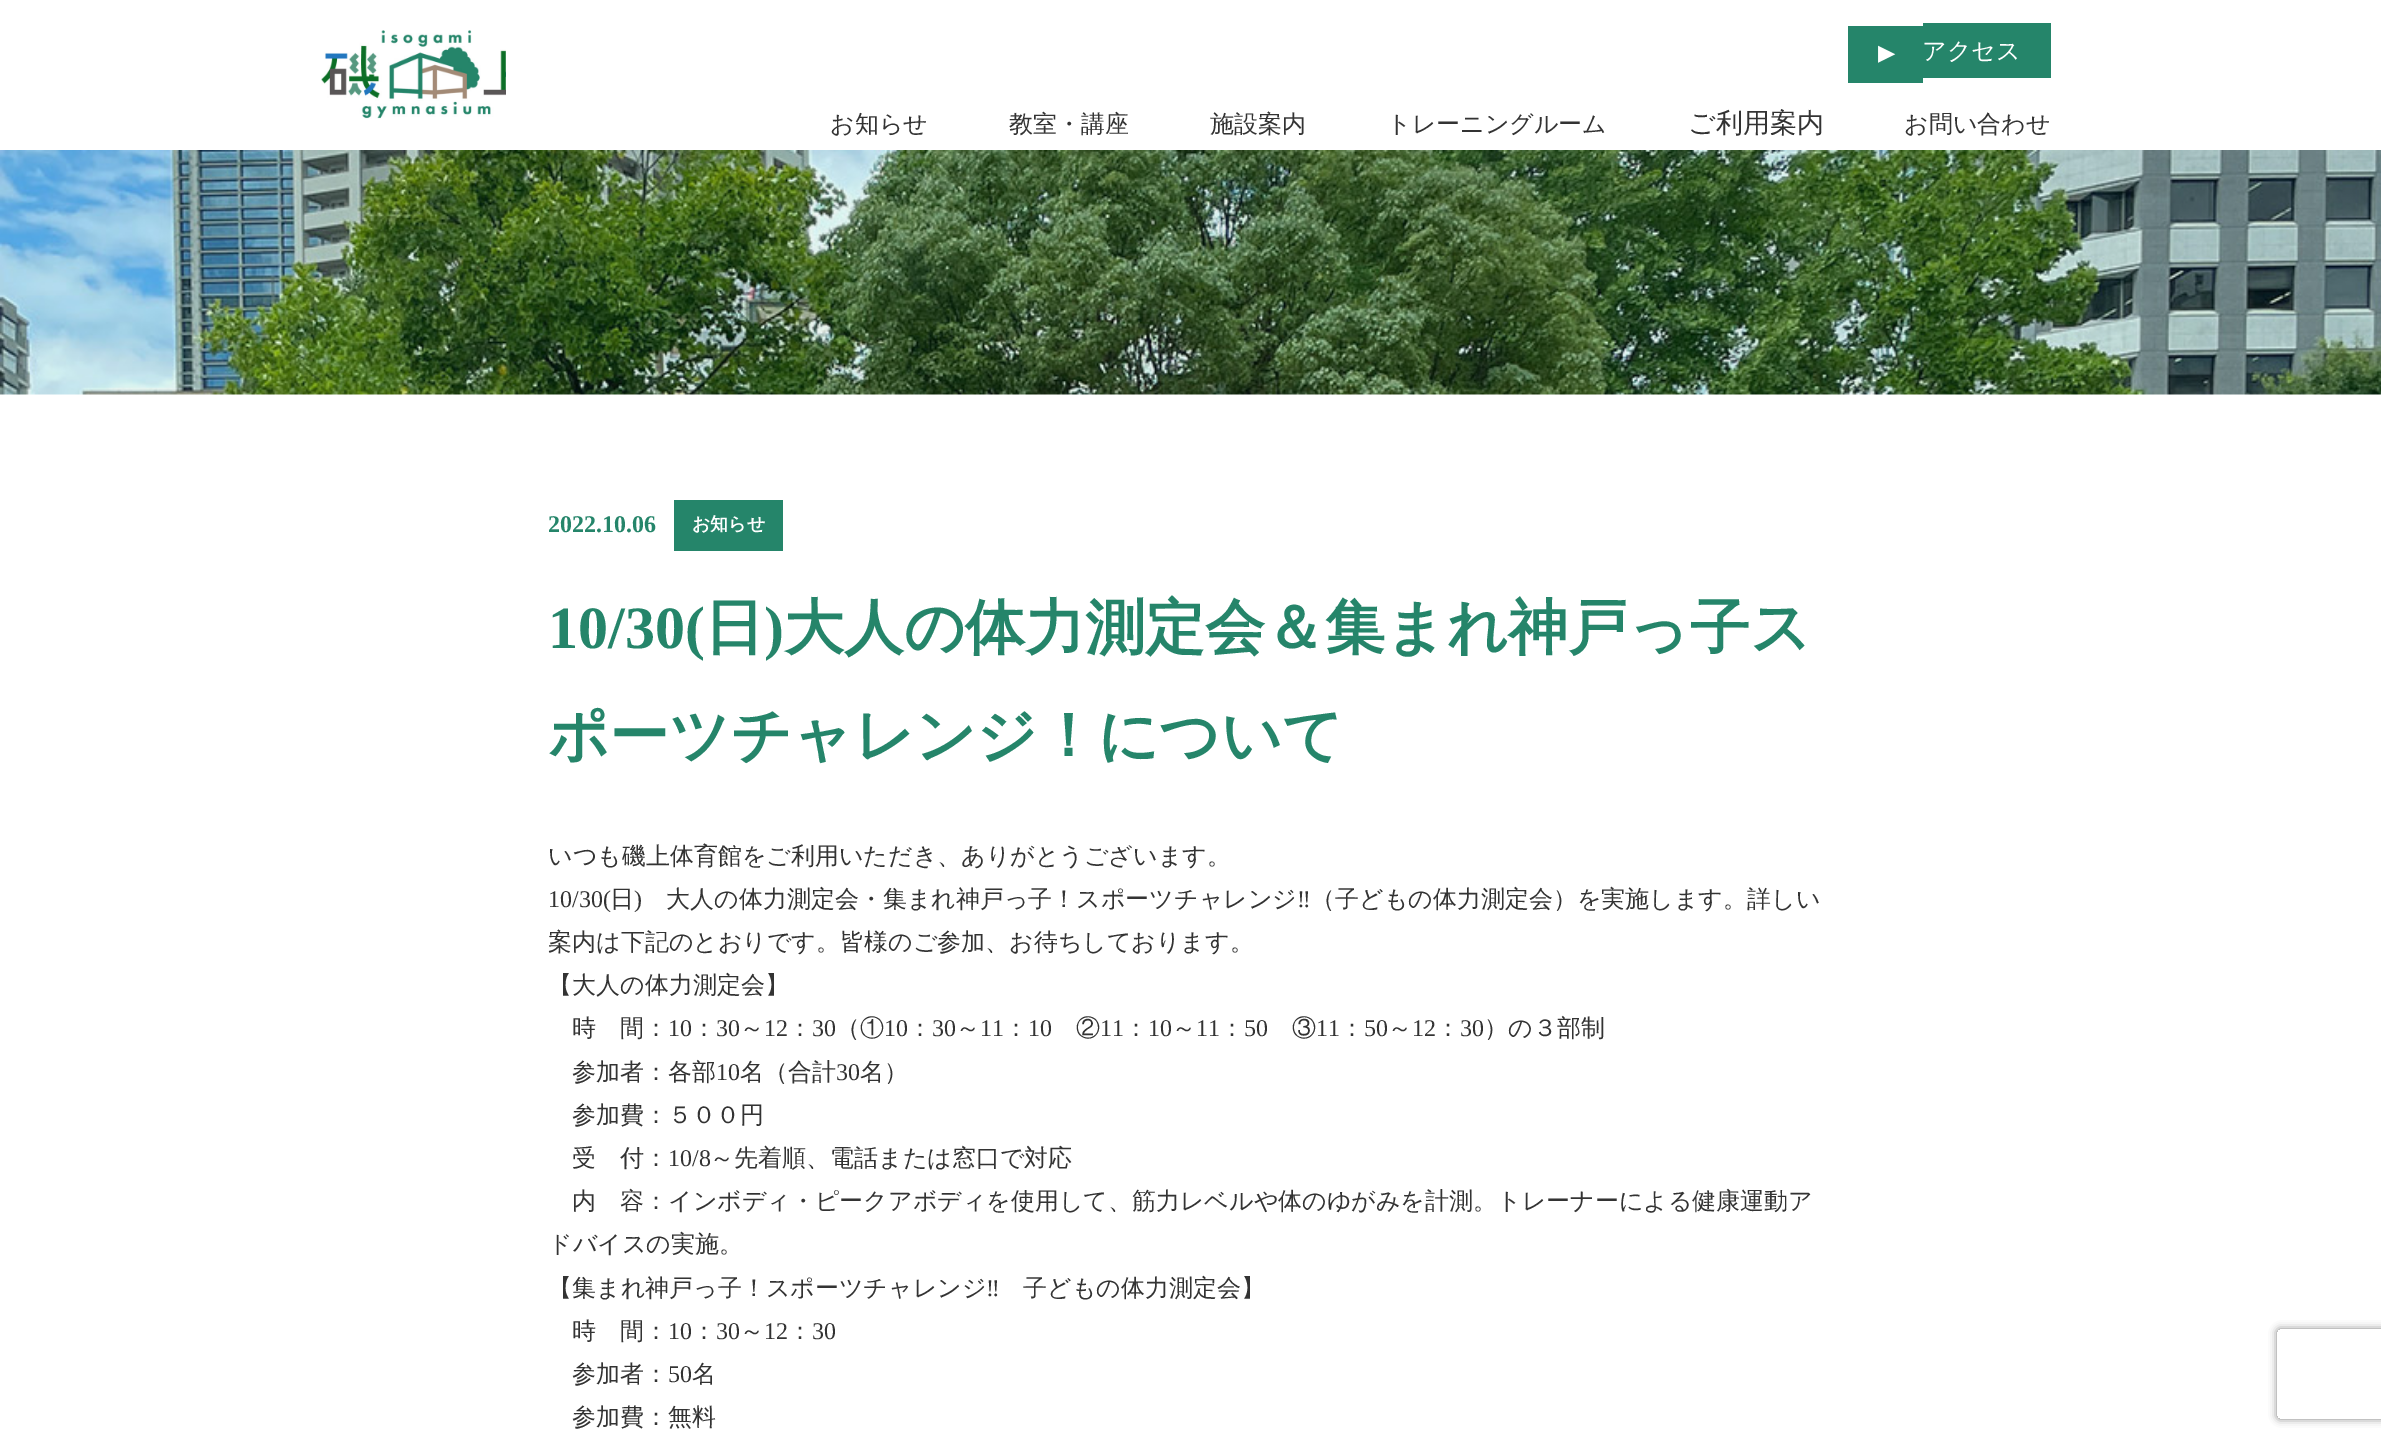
%!PS
<< /PageSize [2381 1440] /PageUsesTransparency true >> setpagedevice
/alpha { dup .setfillconstantalpha .setstrokeconstantalpha } def
/roundrect { 5 dict begin { /r /h /w /y /x } { exch def } forall
  x r add y moveto x w add y 2 copy h add r arct x w add y h add x 1 index r arct
  x y h add x y r arct x y 2 copy exch w add exch r arct closepath end } def
/shadow { 12 dict begin { /a /b /q /h /w /y /x } { exch def } forall gsave /was 0 def
  9 -2 -9 { dup b mul 4 div /e exch def 1 sub .425 mul 2.718 exch exp 1 add a .99 .min exch div /now exch def
    1 1 now sub 1 was sub div sub alpha /was now def
    w h .min e 2 mul add 0 gt { x e sub y e sub w e 2 mul add h e 2 mul add
      q e add b .6 mul add w h .min 2 div e add .min 0 .max roundrect fill } if } for grestore end } def
/picture { 5 dict begin { /h /w /y /x /name } { exch def } forall
  gsave x y translate w h scale
  w h 8 [w 0 0 h 0 0] name (r) file false 3 colorimage grestore end } def
0 .pushpdf14devicefilter
0 1440 translate 1 -1 scale
4 setmiterlimit
1 setgray
0 0 2381 1440 rectfill
(img1.rgb) 321 30 185 89 picture
0.145 0.522 0.416 setrgbcolor
1848 26 75 57 rectfill
1923 23 128 55 rectfill
(img2.rgb) 1878 45 18 18 picture
/WenQuanYiZenHei-Medium [24 0 0 -24 0 0] selectfont
1 setgray
1922 59 moveto (アクセス) show
0.2 setgray
830 132 moveto (お知らせ) show
1009 132 moveto (教室・講座) show
1210 132 moveto (施設案内) show
1387 132 moveto (トレーニングルーム) show
/WenQuanYiZenHei-Medium [27 0 0 -27 0 0] selectfont
1688 132 moveto (ご利用案内) show
/WenQuanYiZenHei-Medium [24 0 0 -24 0 0] selectfont
1904 132 moveto (お問い合わせ) show
(img3.rgb) 0 150 2381 245 picture
/LiberationSerif-Bold [24 0 0 -24 0 0] selectfont
0.145 0.522 0.416 setrgbcolor
548 532 moveto (2022.10.06) show
674 500 109 51 rectfill
/WenQuanYiZenHei-Bold [18 0 0 -18 0 0] selectfont
1 setgray
692 530 moveto (お知らせ) show
/LiberationSerif-Bold [60 0 0 -60 0 0] selectfont
0.145 0.522 0.416 setrgbcolor
548 648 moveto (10/30\() show
/WenQuanYiZenHei-Bold [60 0 0 -60 0 0] selectfont
704 648 moveto (日) show
/LiberationSerif-Bold [60 0 0 -60 0 0] selectfont
764 648 moveto (\)) show
/WenQuanYiZenHei-Bold [60 0 0 -60 0 0] selectfont
784 648 moveto (大人の体力測定会＆集まれ神戸っ子ス) show
548 756 moveto (ポーツチャレンジ！について) show
/WenQuanYiZenHei-Medium [24 0 0 -24 0 0] selectfont
0.2 setgray
548 864 moveto (いつも磯上体育館をご利用いただき、ありがとうございます。) show
/LiberationSerif-Regular [24 0 0 -24 0 0] selectfont
548 907 moveto (10/30\() show
/WenQuanYiZenHei-Medium [24 0 0 -24 0 0] selectfont
610 907 moveto (日) show
/LiberationSerif-Regular [24 0 0 -24 0 0] selectfont
634 907 moveto (\)) show
/WenQuanYiZenHei-Medium [24 0 0 -24 0 0] selectfont
666 907 moveto (大人の体力測定会・集まれ神戸っ子！スポーツチャレンジ) show
/LiberationSerif-Regular [24 0 0 -24 0 0] selectfont
1297 907 moveto (‼) show
/WenQuanYiZenHei-Medium [24 0 0 -24 0 0] selectfont
1311 907 moveto (（子どもの体力測定会）を実施します。詳しい) show
548 950 moveto (案内は下記のとおりです。皆様のご参加、お待ちしております。) show
548 993 moveto (【大人の体力測定会】) show
572 1036 moveto (時　間：) show
/LiberationSerif-Regular [24 0 0 -24 0 0] selectfont
668 1036 moveto (10) show
/WenQuanYiZenHei-Medium [24 0 0 -24 0 0] selectfont
692 1036 moveto (：) show
/LiberationSerif-Regular [24 0 0 -24 0 0] selectfont
716 1036 moveto (30) show
/WenQuanYiZenHei-Medium [24 0 0 -24 0 0] selectfont
740 1036 moveto (～) show
/LiberationSerif-Regular [24 0 0 -24 0 0] selectfont
764 1036 moveto (12) show
/WenQuanYiZenHei-Medium [24 0 0 -24 0 0] selectfont
788 1036 moveto (：) show
/LiberationSerif-Regular [24 0 0 -24 0 0] selectfont
812 1036 moveto (30) show
/WenQuanYiZenHei-Medium [24 0 0 -24 0 0] selectfont
836 1036 moveto (（①) show
/LiberationSerif-Regular [24 0 0 -24 0 0] selectfont
884 1036 moveto (10) show
/WenQuanYiZenHei-Medium [24 0 0 -24 0 0] selectfont
908 1036 moveto (：) show
/LiberationSerif-Regular [24 0 0 -24 0 0] selectfont
932 1036 moveto (30) show
/WenQuanYiZenHei-Medium [24 0 0 -24 0 0] selectfont
956 1036 moveto (～) show
/LiberationSerif-Regular [24 0 0 -24 0 0] selectfont
980 1036 moveto (11) show
/WenQuanYiZenHei-Medium [24 0 0 -24 0 0] selectfont
1004 1036 moveto (：) show
/LiberationSerif-Regular [24 0 0 -24 0 0] selectfont
1028 1036 moveto (10) show
/WenQuanYiZenHei-Medium [24 0 0 -24 0 0] selectfont
1076 1036 moveto (②) show
/LiberationSerif-Regular [24 0 0 -24 0 0] selectfont
1100 1036 moveto (11) show
/WenQuanYiZenHei-Medium [24 0 0 -24 0 0] selectfont
1124 1036 moveto (：) show
/LiberationSerif-Regular [24 0 0 -24 0 0] selectfont
1148 1036 moveto (10) show
/WenQuanYiZenHei-Medium [24 0 0 -24 0 0] selectfont
1172 1036 moveto (～) show
/LiberationSerif-Regular [24 0 0 -24 0 0] selectfont
1196 1036 moveto (11) show
/WenQuanYiZenHei-Medium [24 0 0 -24 0 0] selectfont
1220 1036 moveto (：) show
/LiberationSerif-Regular [24 0 0 -24 0 0] selectfont
1244 1036 moveto (50) show
/WenQuanYiZenHei-Medium [24 0 0 -24 0 0] selectfont
1292 1036 moveto (③) show
/LiberationSerif-Regular [24 0 0 -24 0 0] selectfont
1316 1036 moveto (11) show
/WenQuanYiZenHei-Medium [24 0 0 -24 0 0] selectfont
1340 1036 moveto (：) show
/LiberationSerif-Regular [24 0 0 -24 0 0] selectfont
1364 1036 moveto (50) show
/WenQuanYiZenHei-Medium [24 0 0 -24 0 0] selectfont
1388 1036 moveto (～) show
/LiberationSerif-Regular [24 0 0 -24 0 0] selectfont
1412 1036 moveto (12) show
/WenQuanYiZenHei-Medium [24 0 0 -24 0 0] selectfont
1436 1036 moveto (：) show
/LiberationSerif-Regular [24 0 0 -24 0 0] selectfont
1460 1036 moveto (30) show
/WenQuanYiZenHei-Medium [24 0 0 -24 0 0] selectfont
1484 1036 moveto (）の３部制) show
572 1080 moveto (参加者：各部) show
/LiberationSerif-Regular [24 0 0 -24 0 0] selectfont
716 1080 moveto (10) show
/WenQuanYiZenHei-Medium [24 0 0 -24 0 0] selectfont
740 1080 moveto (名（合計) show
/LiberationSerif-Regular [24 0 0 -24 0 0] selectfont
836 1080 moveto (30) show
/WenQuanYiZenHei-Medium [24 0 0 -24 0 0] selectfont
860 1080 moveto (名）) show
572 1123 moveto (参加費：５００円) show
572 1166 moveto (受　付：) show
/LiberationSerif-Regular [24 0 0 -24 0 0] selectfont
668 1166 moveto (10/8) show
/WenQuanYiZenHei-Medium [24 0 0 -24 0 0] selectfont
710 1166 moveto (～先着順、電話または窓口で対応) show
572 1209 moveto (内　容：インボディ・ピークアボディを使用して、筋力レベルや体のゆがみを計測。トレーナーによる健康運動ア) show
548 1252 moveto (ドバイスの実施。) show
548 1296 moveto (【集まれ神戸っ子！スポーツチャレンジ) show
/LiberationSerif-Regular [24 0 0 -24 0 0] selectfont
986 1296 moveto (‼) show
/WenQuanYiZenHei-Medium [24 0 0 -24 0 0] selectfont
1023 1296 moveto (子どもの体力測定会】) show
572 1339 moveto (時　間：) show
/LiberationSerif-Regular [24 0 0 -24 0 0] selectfont
668 1339 moveto (10) show
/WenQuanYiZenHei-Medium [24 0 0 -24 0 0] selectfont
692 1339 moveto (：) show
/LiberationSerif-Regular [24 0 0 -24 0 0] selectfont
716 1339 moveto (30) show
/WenQuanYiZenHei-Medium [24 0 0 -24 0 0] selectfont
740 1339 moveto (～) show
/LiberationSerif-Regular [24 0 0 -24 0 0] selectfont
764 1339 moveto (12) show
/WenQuanYiZenHei-Medium [24 0 0 -24 0 0] selectfont
788 1339 moveto (：) show
/LiberationSerif-Regular [24 0 0 -24 0 0] selectfont
812 1339 moveto (30) show
/WenQuanYiZenHei-Medium [24 0 0 -24 0 0] selectfont
572 1382 moveto (参加者：) show
/LiberationSerif-Regular [24 0 0 -24 0 0] selectfont
668 1382 moveto (50) show
/WenQuanYiZenHei-Medium [24 0 0 -24 0 0] selectfont
692 1382 moveto (名) show
572 1425 moveto (参加費：無料) show
gsave
newpath 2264 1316 moveto 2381 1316 lineto 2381 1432 lineto 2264 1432 lineto closepath 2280 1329 moveto 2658 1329 lineto 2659.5 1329 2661 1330.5 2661 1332 curveto 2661 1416 lineto 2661 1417.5 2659.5 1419 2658 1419 curveto 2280 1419 lineto 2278.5 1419 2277 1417.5 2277 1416 curveto 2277 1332 lineto 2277 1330.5 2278.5 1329 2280 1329 curveto closepath eoclip newpath
0.502 setgray
2277 1329 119 90 3 4 1 shadow
grestore
.poppdf14devicefilter showpage
